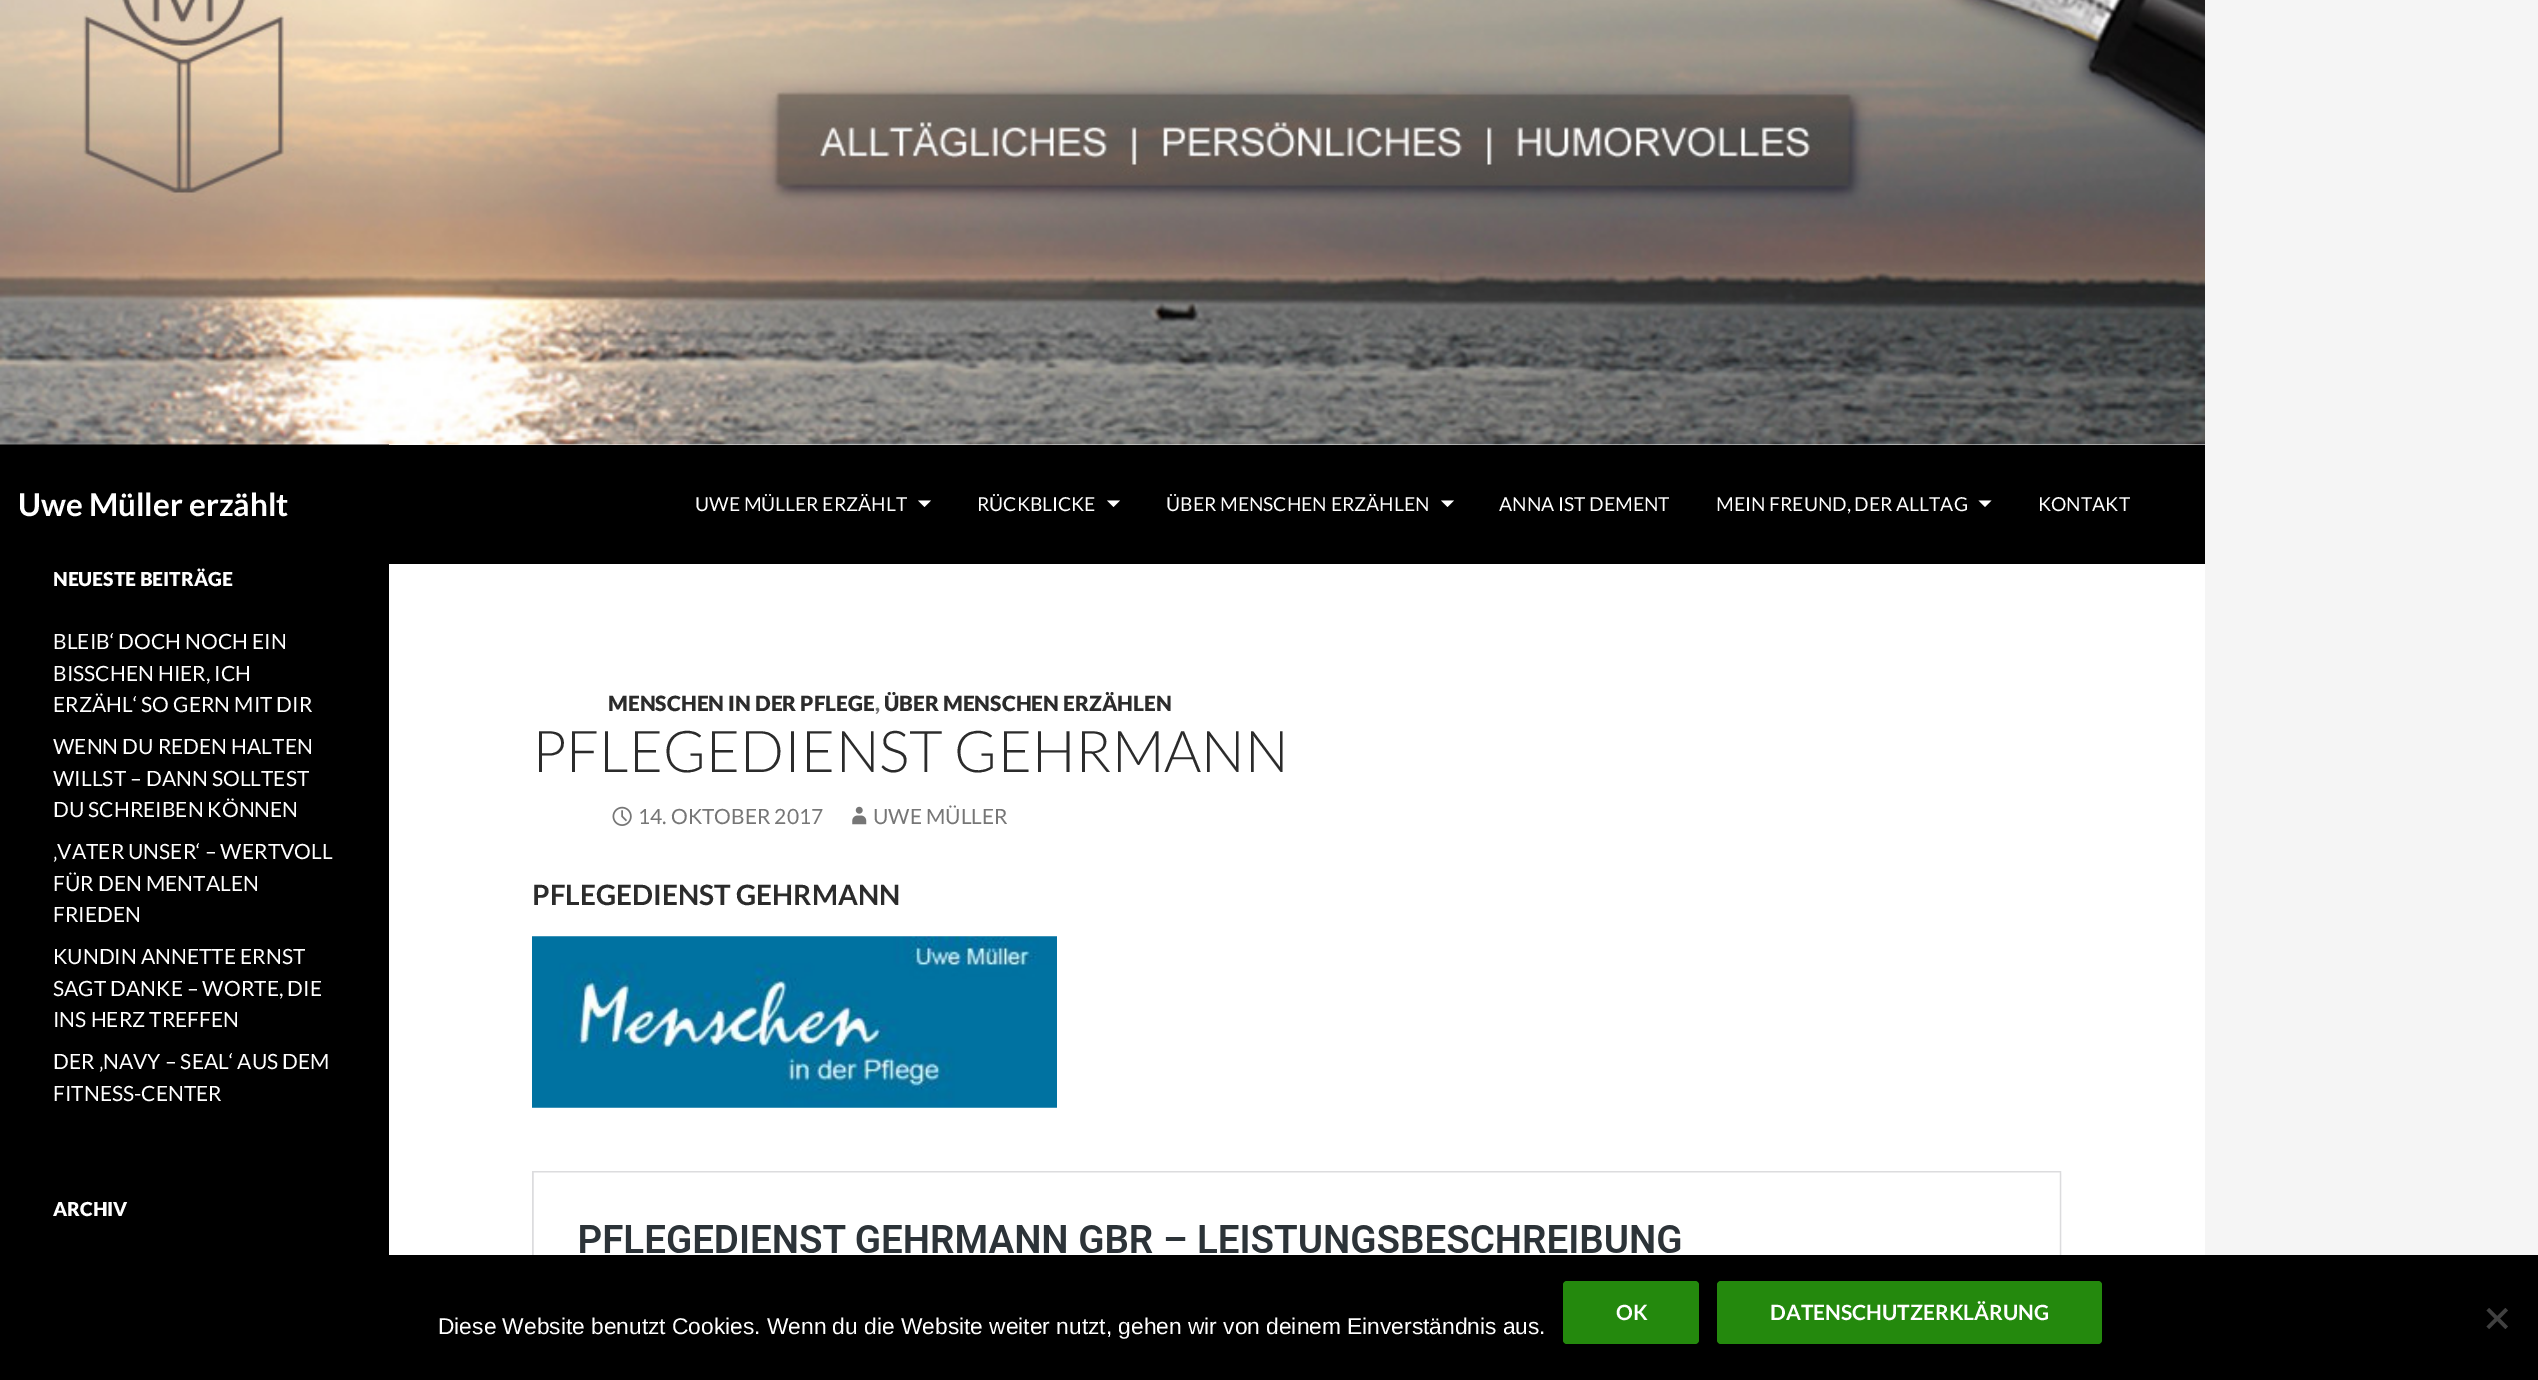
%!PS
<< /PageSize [2538 1380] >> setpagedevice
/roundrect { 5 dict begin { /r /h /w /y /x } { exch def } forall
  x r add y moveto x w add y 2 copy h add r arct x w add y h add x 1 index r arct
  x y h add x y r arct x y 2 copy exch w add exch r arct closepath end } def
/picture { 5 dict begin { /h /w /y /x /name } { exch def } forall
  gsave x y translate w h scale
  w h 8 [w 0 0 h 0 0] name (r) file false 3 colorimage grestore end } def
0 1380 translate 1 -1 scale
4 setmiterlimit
0.961 setgray
0 0 2538 1380 rectfill
1 setgray
389 444 1816 811 rectfill
0 setgray
0 444 389 811 rectfill
(img1.rgb) 0 0 2205 445 picture
389 445 1816 119 rectfill
/Lato-Bold [31.5 0 0 -31.5 0 0] selectfont
1 setgray
18 516 moveto (Uwe Müller erzählt) show
/Lato-Regular [19.25 0 0 -19.25 0 0] selectfont
695 511 moveto (UWE MÜLLER ERZÄHLT) show
newpath 918 500.5 moveto 924.5 507 lineto 931 500.5 lineto closepath fill
977 511 moveto (RÜCKBLICKE) show
newpath 1107 500.5 moveto 1113.5 507 lineto 1120 500.5 lineto closepath fill
1166 511 moveto (ÜBER MENSCHEN ERZÄHLEN) show
newpath 1441 500.5 moveto 1447.5 507 lineto 1454 500.5 lineto closepath fill
1499 511 moveto (ANNA IST DEMENT) show
1716 511 moveto (MEIN FREUND, DER ALLTAG) show
newpath 1978.5 500.5 moveto 1985 507 lineto 1991.5 500.5 lineto closepath fill
2038 511 moveto (KONTAKT) show
/Lato-Black [19.25 0 0 -19.25 0 0] selectfont
53 586 moveto (NEUESTE BEITRÄGE) show
/Lato-Regular [21 0 0 -21 0 0] selectfont
53 649 moveto (BLEIB‘ DOCH NOCH EIN) show
53 681 moveto (BISSCHEN HIER, ICH) show
53 712 moveto (ERZÄHL‘ SO GERN MIT DIR) show
53 754 moveto (WENN DU REDEN HALTEN) show
53 786 moveto (WILLST – DANN SOLLTEST) show
53 817 moveto (DU SCHREIBEN KÖNNEN) show
53 859 moveto (‚VATER UNSER‘ – WERTVOLL) show
53 891 moveto (FÜR DEN MENTALEN) show
53 922 moveto (FRIEDEN) show
53 964 moveto (KUNDIN ANNETTE ERNST) show
53 996 moveto (SAGT DANKE – WORTE, DIE) show
53 1027 moveto (INS HERZ TREFFEN) show
53 1069 moveto (DER ‚NAVY – SEAL‘ AUS DEM) show
53 1101 moveto (FITNESS-CENTER) show
/Lato-Black [19.25 0 0 -19.25 0 0] selectfont
53 1216 moveto (ARCHIV) show
/Lato-Black [21 0 0 -21 0 0] selectfont
0.169 setgray
608 711 moveto (MENSCHEN IN DER PFLEGE) show
0.463 setgray
875 711 moveto (,) show
0.169 setgray
884 711 moveto (ÜBER MENSCHEN ERZÄHLEN) show
/Lato-Light [57.75 0 0 -57.75 0 0] selectfont
532 772 moveto (PFLEGEDIENST GEHRMANN) show
(img2.rgb) 612 806 20 20 picture
/Lato-Regular [21 0 0 -21 0 0] selectfont
0.463 setgray
638 824 moveto (14. OKTOBER 2017) show
(img3.rgb) 852 806 15 19 picture
873 824 moveto (UWE MÜLLER) show
/Lato-Bold [28 0 0 -28 0 0] selectfont
0.169 setgray
532 905 moveto (PFLEGEDIENST GEHRMANN) show
(img4.rgb) 532 936 525 172 picture
(img5.rgb) 532 1171 1530 84 picture
0 setgray
0 1255 2538 125 rectfill
/LiberationSans-Regular [22.75 0 0 -22.75 0 0] selectfont
1 setgray
438 1334 moveto (Diese Website benutzt Cookies. Wenn du die Website weiter nutzt, gehen wir von deinem Einverständnis aus.) show
0.141 0.537 0.051 setrgbcolor
1563 1281 136 63 4 roundrect fill
/Lato-Bold [21 0 0 -21 0 0] selectfont
1 setgray
1616 1320 moveto (OK) show
0.141 0.537 0.051 setrgbcolor
1717 1281 385 63 4 roundrect fill
1 setgray
1770 1320 moveto (DATENSCHUTZERKLÄRUNG) show
0.251 setgray
newpath 2505.5 1308 moveto 2508 1310.5 lineto 2489 1329 lineto 2486.5 1326.5 lineto closepath fill
newpath 2486.5 1310.5 moveto 2489 1308 lineto 2508 1326.5 lineto 2505.5 1329 lineto closepath fill
showpage
